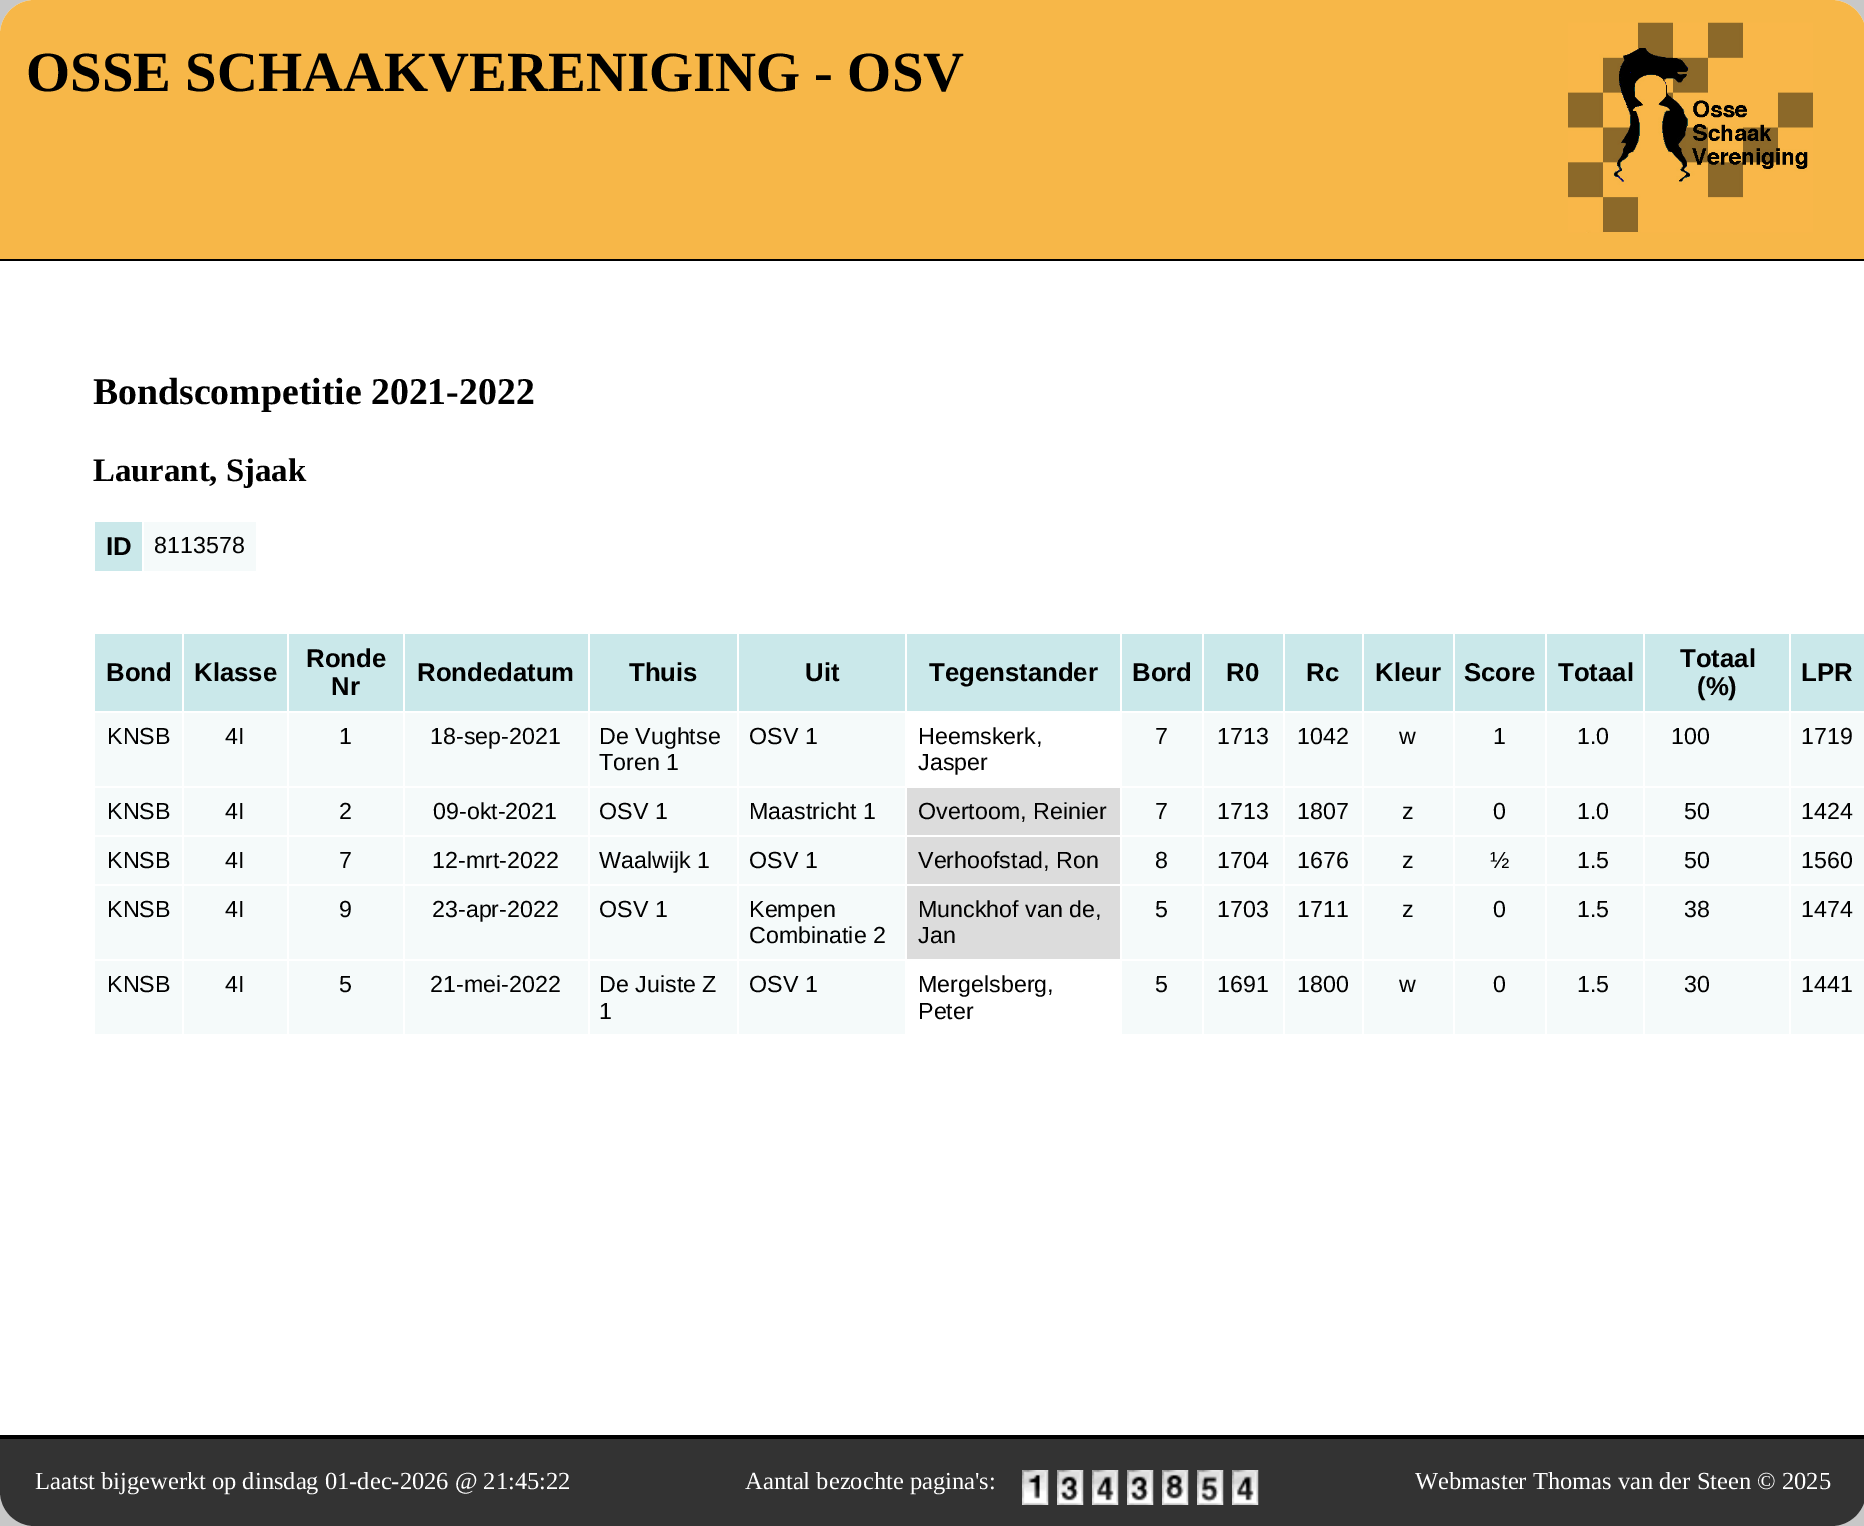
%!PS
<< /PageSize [1864 1526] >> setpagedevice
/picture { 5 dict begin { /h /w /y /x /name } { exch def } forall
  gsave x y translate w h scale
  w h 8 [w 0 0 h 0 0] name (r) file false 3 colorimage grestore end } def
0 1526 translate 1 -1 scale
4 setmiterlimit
0.784 setgray
0 0 1864 1526 rectfill
1 setgray
newpath 35 0 moveto 1831 0 lineto 1850.5 0 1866 15.5 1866 35 curveto 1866 1437 lineto 0 1437 lineto 0 35 lineto 0 15.5 15.5 0 35 0 curveto closepath fill
0.969 0.718 0.282 setrgbcolor
newpath 35 0 moveto 1831 0 lineto 1850.5 0 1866 15.5 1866 35 curveto 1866 261 lineto 0 261 lineto 0 35 lineto 0 15.5 15.5 0 35 0 curveto closepath fill
0 setgray
0 259 1864 2 rectfill
/LiberationSerif-Bold [56.75 0 0 -56.75 0 0] selectfont
26 91 moveto (OSSE SCHAAKVERENIGING - OSV) show
(img1.rgb) 1568 22 245 211 picture
/LiberationSerif-Bold [37.75 0 0 -37.75 0 0] selectfont
93 404 moveto (Bondscompetitie 2021-2022) show
/LiberationSerif-Bold [32.75 0 0 -32.75 0 0] selectfont
93 481 moveto (Laurant, Sjaak) show
0.961 0.98 0.98 setrgbcolor
144 522 112 49 rectfill
0.792 0.91 0.918 setrgbcolor
95 522 47 49 rectfill
/LiberationSans-Bold [25.75 0 0 -25.75 0 0] selectfont
0 setgray
106 555 moveto (ID) show
/LiberationSans-Regular [23.25 0 0 -23.25 0 0] selectfont
154 553 moveto (8113578) show
0.961 0.98 0.98 setrgbcolor
95 713 1769 321 rectfill
0.792 0.91 0.918 setrgbcolor
95 634 87 77 rectfill
/LiberationSans-Bold [25.75 0 0 -25.75 0 0] selectfont
0 setgray
106 681 moveto (Bond) show
0.792 0.91 0.918 setrgbcolor
184 634 103 77 rectfill
0 setgray
194 681 moveto (Klasse) show
0.792 0.91 0.918 setrgbcolor
289 634 114 77 rectfill
0 setgray
306 667 moveto (Ronde) show
331 695 moveto (Nr) show
0.792 0.91 0.918 setrgbcolor
405 634 183 77 rectfill
0 setgray
417 681 moveto (Rondedatum) show
0.792 0.91 0.918 setrgbcolor
590 634 147 77 rectfill
0 setgray
629 681 moveto (Thuis) show
0.792 0.91 0.918 setrgbcolor
739 634 166 77 rectfill
0 setgray
805 681 moveto (Uit) show
0.792 0.91 0.918 setrgbcolor
907 634 213 77 rectfill
0 setgray
929 681 moveto (Tegenstander) show
0.792 0.91 0.918 setrgbcolor
1122 634 80 77 rectfill
0 setgray
1132 681 moveto (Bord) show
0.792 0.91 0.918 setrgbcolor
1204 634 79 77 rectfill
0 setgray
1226 681 moveto (R0) show
0.792 0.91 0.918 setrgbcolor
1285 634 77 77 rectfill
0 setgray
1306 681 moveto (Rc) show
0.792 0.91 0.918 setrgbcolor
1364 634 89 77 rectfill
0 setgray
1375 681 moveto (Kleur) show
0.792 0.91 0.918 setrgbcolor
1455 634 90 77 rectfill
0 setgray
1464 681 moveto (Score) show
0.792 0.91 0.918 setrgbcolor
1547 634 96 77 rectfill
0 setgray
1558 681 moveto (Totaal) show
0.792 0.91 0.918 setrgbcolor
1645 634 144 77 rectfill
0 setgray
1680 667 moveto (Totaal) show
1697 695 moveto (\(%\)) show
0.792 0.91 0.918 setrgbcolor
1791 634 73 77 rectfill
0 setgray
1801 681 moveto (LPR) show
/LiberationSans-Regular [23.25 0 0 -23.25 0 0] selectfont
107 744 moveto (KNSB) show
1 setgray
1789 786 75 2 rectfill
1789 835 75 2 rectfill
1789 884 75 2 rectfill
1789 959 75 2 rectfill
1789 959 2 77 rectfill
1643 959 147 2 rectfill
1789 884 2 77 rectfill
1643 884 147 2 rectfill
1789 835 2 51 rectfill
1643 835 147 2 rectfill
1789 786 2 51 rectfill
1643 786 147 2 rectfill
1643 959 2 77 rectfill
1545 959 100 2 rectfill
1643 884 2 77 rectfill
1545 884 100 2 rectfill
1643 835 2 51 rectfill
1545 835 100 2 rectfill
1643 786 2 51 rectfill
1545 786 100 2 rectfill
1545 959 2 77 rectfill
1453 959 94 2 rectfill
1545 884 2 77 rectfill
1453 884 94 2 rectfill
1545 835 2 51 rectfill
1453 835 94 2 rectfill
1545 786 2 51 rectfill
1453 786 94 2 rectfill
1453 959 2 77 rectfill
1362 959 92 2 rectfill
1453 884 2 77 rectfill
1362 884 92 2 rectfill
1453 835 2 51 rectfill
1362 835 92 2 rectfill
1453 786 2 51 rectfill
1362 786 92 2 rectfill
1362 959 2 77 rectfill
1283 959 80 2 rectfill
1362 884 2 77 rectfill
1283 884 80 2 rectfill
1362 835 2 51 rectfill
1283 835 80 2 rectfill
1362 786 2 51 rectfill
1283 786 80 2 rectfill
1283 959 2 77 rectfill
1202 959 83 2 rectfill
1283 884 2 77 rectfill
1202 884 83 2 rectfill
1283 835 2 51 rectfill
1202 835 83 2 rectfill
1283 786 2 51 rectfill
1202 786 83 2 rectfill
1202 959 2 77 rectfill
1120 959 84 2 rectfill
1202 884 2 77 rectfill
1120 884 84 2 rectfill
1202 835 2 51 rectfill
1120 835 84 2 rectfill
1202 786 2 51 rectfill
1120 786 84 2 rectfill
1120 959 2 77 rectfill
905 959 217 2 rectfill
1120 884 2 77 rectfill
905 884 217 2 rectfill
1120 835 2 51 rectfill
905 835 217 2 rectfill
1120 786 2 51 rectfill
905 786 217 2 rectfill
905 959 2 77 rectfill
737 959 170 2 rectfill
905 884 2 77 rectfill
737 884 170 2 rectfill
905 835 2 51 rectfill
737 835 170 2 rectfill
905 786 2 51 rectfill
737 786 170 2 rectfill
737 959 2 77 rectfill
588 959 151 2 rectfill
737 884 2 77 rectfill
588 884 151 2 rectfill
737 835 2 51 rectfill
588 835 151 2 rectfill
737 786 2 51 rectfill
588 786 151 2 rectfill
588 959 2 77 rectfill
403 959 187 2 rectfill
588 884 2 77 rectfill
403 884 187 2 rectfill
588 835 2 51 rectfill
403 835 187 2 rectfill
588 786 2 51 rectfill
403 786 187 2 rectfill
403 959 2 77 rectfill
287 959 117 2 rectfill
403 884 2 77 rectfill
287 884 117 2 rectfill
403 835 2 51 rectfill
287 835 117 2 rectfill
403 786 2 51 rectfill
287 786 117 2 rectfill
287 959 2 77 rectfill
182 959 107 2 rectfill
287 884 2 77 rectfill
182 884 107 2 rectfill
287 835 2 51 rectfill
182 835 107 2 rectfill
287 786 2 51 rectfill
182 786 107 2 rectfill
182 959 2 77 rectfill
93 959 91 2 rectfill
182 884 2 77 rectfill
93 884 91 2 rectfill
182 835 2 51 rectfill
93 835 91 2 rectfill
182 786 2 51 rectfill
93 786 91 2 rectfill
182 711 2 77 rectfill
0 setgray
225 744 moveto (4I) show
1 setgray
287 711 2 77 rectfill
0 setgray
339 744 moveto (1) show
1 setgray
403 711 2 77 rectfill
0 setgray
430 744 moveto (18-sep-2021) show
1 setgray
588 711 2 77 rectfill
0 setgray
599 744 moveto (De Vughtse) show
599 770 moveto (Toren 1) show
1 setgray
737 711 2 77 rectfill
0 setgray
749 744 moveto (OSV 1) show
1 setgray
907 713 213 73 rectfill
905 711 2 77 rectfill
0 setgray
918 744 moveto (Heemskerk,) show
918 770 moveto (Jasper) show
1 setgray
1120 711 2 77 rectfill
0 setgray
1155 744 moveto (7) show
1 setgray
1202 711 2 77 rectfill
0 setgray
1217 744 moveto (1713) show
1 setgray
1283 711 2 77 rectfill
0 setgray
1297 744 moveto (1042) show
1 setgray
1362 711 2 77 rectfill
0 setgray
1399 744 moveto (w) show
1 setgray
1453 711 2 77 rectfill
0 setgray
1493 744 moveto (1) show
1 setgray
1545 711 2 77 rectfill
0 setgray
1577 744 moveto (1.0) show
1 setgray
1643 711 2 77 rectfill
0 setgray
1671 744 moveto (100) show
1 setgray
1789 711 2 77 rectfill
0 setgray
1801 744 moveto (1719) show
107 819 moveto (KNSB) show
225 819 moveto (4I) show
339 819 moveto (2) show
433 819 moveto (09-okt-2021) show
599 819 moveto (OSV 1) show
749 819 moveto (Maastricht 1) show
0.863 setgray
907 788 213 47 rectfill
0 setgray
918 819 moveto (Overtoom, Reinier) show
1155 819 moveto (7) show
1217 819 moveto (1713) show
1297 819 moveto (1807) show
1402 819 moveto (z) show
1493 819 moveto (0) show
1577 819 moveto (1.0) show
1684 819 moveto (50) show
1801 819 moveto (1424) show
107 868 moveto (KNSB) show
225 868 moveto (4I) show
339 868 moveto (7) show
432 868 moveto (12-mrt-2022) show
599 868 moveto (Waalwijk 1) show
749 868 moveto (OSV 1) show
0.863 setgray
907 837 213 47 rectfill
0 setgray
918 868 moveto (Verhoofstad, Ron) show
1155 868 moveto (8) show
1217 868 moveto (1704) show
1297 868 moveto (1676) show
1402 868 moveto (z) show
1490 868 moveto (½) show
1577 868 moveto (1.5) show
1684 868 moveto (50) show
1801 868 moveto (1560) show
107 917 moveto (KNSB) show
225 917 moveto (4I) show
339 917 moveto (9) show
432 917 moveto (23-apr-2022) show
599 917 moveto (OSV 1) show
749 917 moveto (Kempen) show
749 943 moveto (Combinatie 2) show
0.863 setgray
907 886 213 73 rectfill
0 setgray
918 917 moveto (Munckhof van de,) show
918 943 moveto (Jan) show
1155 917 moveto (5) show
1217 917 moveto (1703) show
1297 917 moveto (1711) show
1402 917 moveto (z) show
1493 917 moveto (0) show
1577 917 moveto (1.5) show
1684 917 moveto (38) show
1801 917 moveto (1474) show
107 992 moveto (KNSB) show
225 992 moveto (4I) show
339 992 moveto (5) show
430 992 moveto (21-mei-2022) show
599 992 moveto (De Juiste Z) show
599 1019 moveto (1) show
749 992 moveto (OSV 1) show
1 setgray
907 961 213 73 rectfill
0 setgray
918 992 moveto (Mergelsberg,) show
918 1019 moveto (Peter) show
1155 992 moveto (5) show
1217 992 moveto (1691) show
1297 992 moveto (1800) show
1399 992 moveto (w) show
1493 992 moveto (0) show
1577 992 moveto (1.5) show
1684 992 moveto (30) show
1801 992 moveto (1441) show
0 1435 1864 4 rectfill
0.2 setgray
newpath 0 1439 moveto 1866 1439 lineto 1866 1491 lineto 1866 1510.5 1850.5 1526 1831 1526 curveto 35 1526 lineto 15.5 1526 0 1510.5 0 1491 curveto closepath fill
/LiberationSerif-Regular [24.5 0 0 -24.5 0 0] selectfont
1 setgray
35 1489 moveto (Laatst bijgewerkt op dinsdag 01-dec-2026 @ 21:45:22) show
745 1489 moveto (Aantal bezochte pagina's:) show
(img2.rgb) 1022 1470 27 35 picture
(img3.rgb) 1057 1470 27 35 picture
(img4.rgb) 1092 1470 27 35 picture
(img5.rgb) 1127 1470 27 35 picture
(img6.rgb) 1162 1470 27 35 picture
(img7.rgb) 1197 1470 27 35 picture
(img8.rgb) 1232 1470 27 35 picture
1415 1489 moveto (Webmaster Thomas van der Steen © 2025) show
showpage
